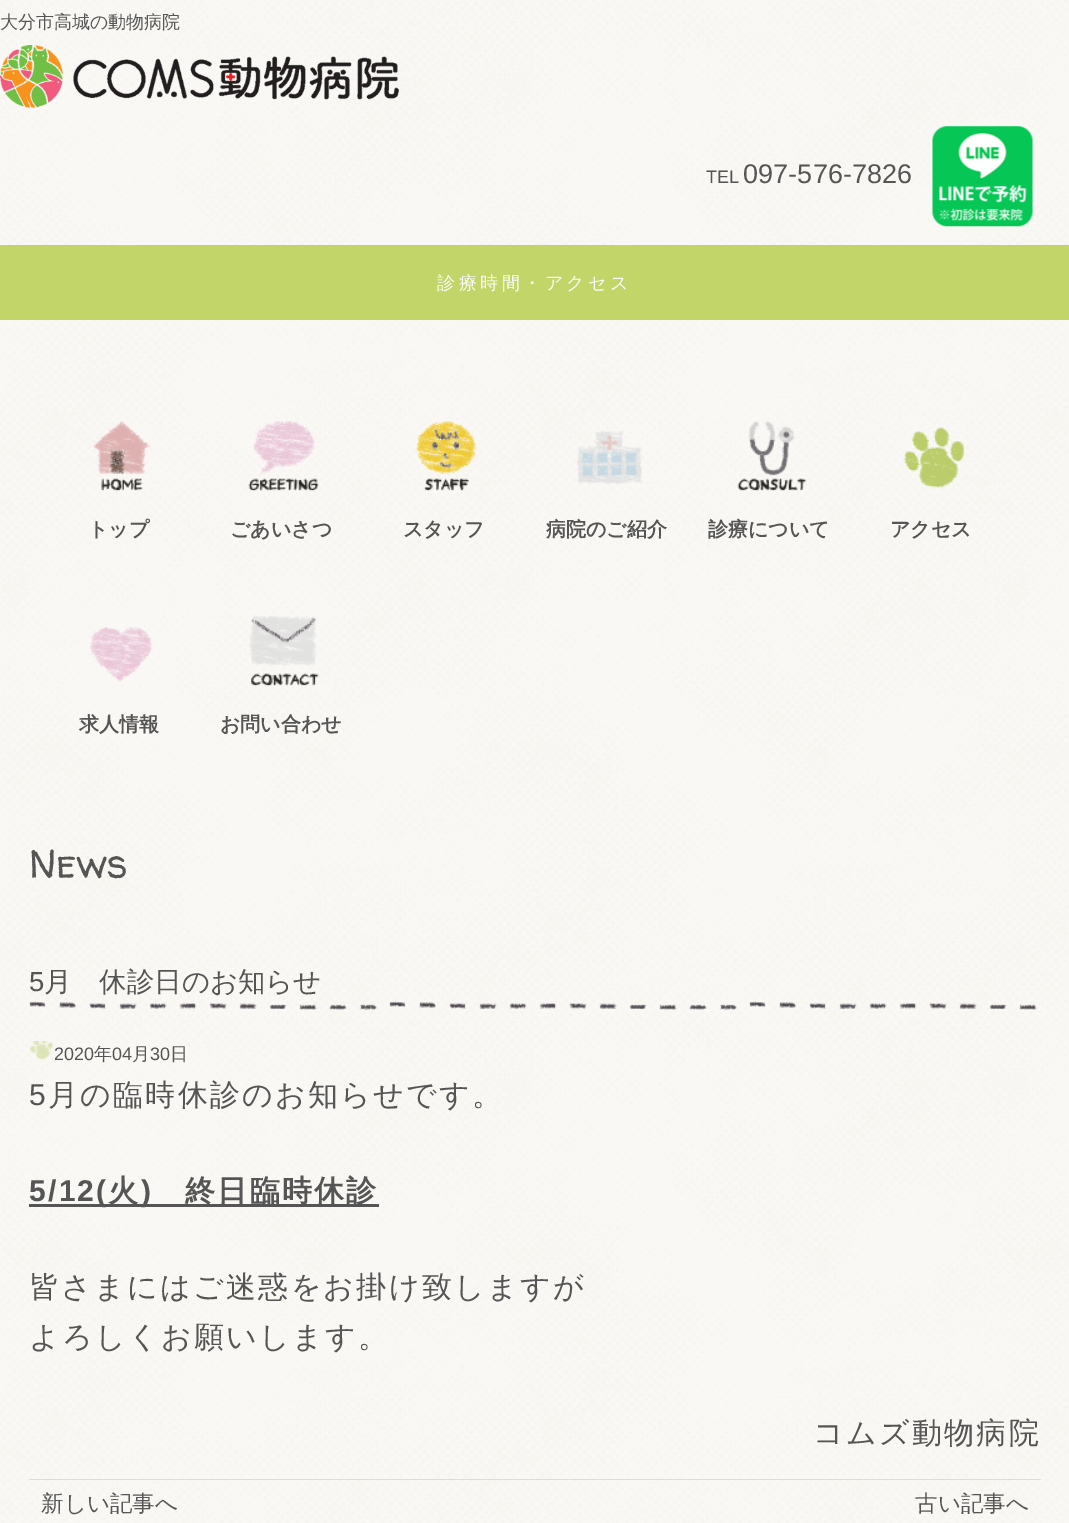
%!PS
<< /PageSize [1069 1523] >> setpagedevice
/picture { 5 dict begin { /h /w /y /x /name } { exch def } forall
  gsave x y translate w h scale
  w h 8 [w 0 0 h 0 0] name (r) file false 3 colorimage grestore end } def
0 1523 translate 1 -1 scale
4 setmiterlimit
1 setgray
0 0 1069 1523 rectfill
(img1.rgb) 0 0 1069 1523 picture
/WenQuanYiZenHei-Medium [18 0 0 -18 0 0] selectfont
0.333 setgray
0 28 moveto (大分市高城の動物病院) show
(img2.rgb) 0 45 399 63 picture
/LiberationSans-Regular [18 0 0 -18 0 0] selectfont
706 183 moveto 0.1 0 (TEL) ashow
/LiberationSans-Regular [27 0 0 -27 0 0] selectfont
743 183 moveto 0.1 0 (097-576-7826) ashow
(img3.rgb) 932 126 101 101 picture
0.757 0.835 0.408 setrgbcolor
0 245 1069 75 rectfill
/WenQuanYiZenHei-Medium [18 0 0 -18 0 0] selectfont
1 setgray
437 289 moveto 3.5 0 (診療時間・アクセス) ashow
(img4.rgb) 93 421 58 70 picture
/WenQuanYiZenHei-Bold [20 0 0 -20 0 0] selectfont
0.333 setgray
88 536 moveto (トップ) show
(img5.rgb) 248 421 71 70 picture
230 536 moveto (ごあいさつ) show
(img6.rgb) 416 421 61 70 picture
403 536 moveto (スタッフ) show
(img7.rgb) 577 430 66 54 picture
546 536 moveto (病院のご紹介) show
(img8.rgb) 737 421 70 70 picture
708 536 moveto (診療について) show
(img9.rgb) 903 427 62 61 picture
890 536 moveto (アクセス) show
(img10.rgb) 90 626 63 56 picture
79 731 moveto (求人情報) show
(img11.rgb) 250 615 69 71 picture
220 731 moveto (お問い合わせ) show
/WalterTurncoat-Regular [40.5 0 0 -40.5 0 0] selectfont
29 878 moveto (News) show
(img12.rgb) 29 1001 1008 9 picture
/LiberationSans-Regular [27.5 0 0 -27.5 0 0] selectfont
29 991 moveto (5) show
/WenQuanYiZenHei-Medium [27.5 0 0 -27.5 0 0] selectfont
44 991 moveto (月　休診日のお知らせ) show
(img13.rgb) 29 1041 25 19 picture
/LiberationSans-Regular [18 0 0 -18 0 0] selectfont
54 1060 moveto (2020) show
/WenQuanYiZenHei-Medium [18 0 0 -18 0 0] selectfont
94 1060 moveto (年) show
/LiberationSans-Regular [18 0 0 -18 0 0] selectfont
112 1060 moveto (04) show
/WenQuanYiZenHei-Medium [18 0 0 -18 0 0] selectfont
132 1060 moveto (月) show
/LiberationSans-Regular [18 0 0 -18 0 0] selectfont
150 1060 moveto (30) show
/WenQuanYiZenHei-Medium [18 0 0 -18 0 0] selectfont
170 1060 moveto (日) show
/LiberationSans-Regular [30 0 0 -30 0 0] selectfont
29 1105 moveto 2.25 0 (5) ashow
/WenQuanYiZenHei-Medium [30 0 0 -30 0 0] selectfont
48 1105 moveto 2.25 0 (月の臨時休診のお知らせです。) ashow
29 1204 350 3 rectfill
/LiberationSans-Bold [30 0 0 -30 0 0] selectfont
29 1201 moveto 2.25 0 (5/12\() ashow
/WenQuanYiZenHei-Bold [30 0 0 -30 0 0] selectfont
108 1201 moveto 2.25 0 (火) ashow
/LiberationSans-Bold [30 0 0 -30 0 0] selectfont
141 1201 moveto 2.25 0 (\)) ashow
/WenQuanYiZenHei-Bold [30 0 0 -30 0 0] selectfont
185 1201 moveto 2.25 0 (終日臨時休診) ashow
/WenQuanYiZenHei-Medium [30 0 0 -30 0 0] selectfont
29 1297 moveto 2.25 0 (皆さまにはご迷惑をお掛け致しますが) ashow
29 1347 moveto 2.25 0 (よろしくお願いします。) ashow
813 1443 moveto 2.25 0 (コムズ動物病院) ashow
0.867 setgray
29 1479 1012 1 rectfill
/WenQuanYiZenHei-Medium [22.5 0 0 -22.5 0 0] selectfont
0.333 setgray
41 1511 moveto (新しい記事へ) show
915 1511 moveto (古い記事へ) show
showpage
